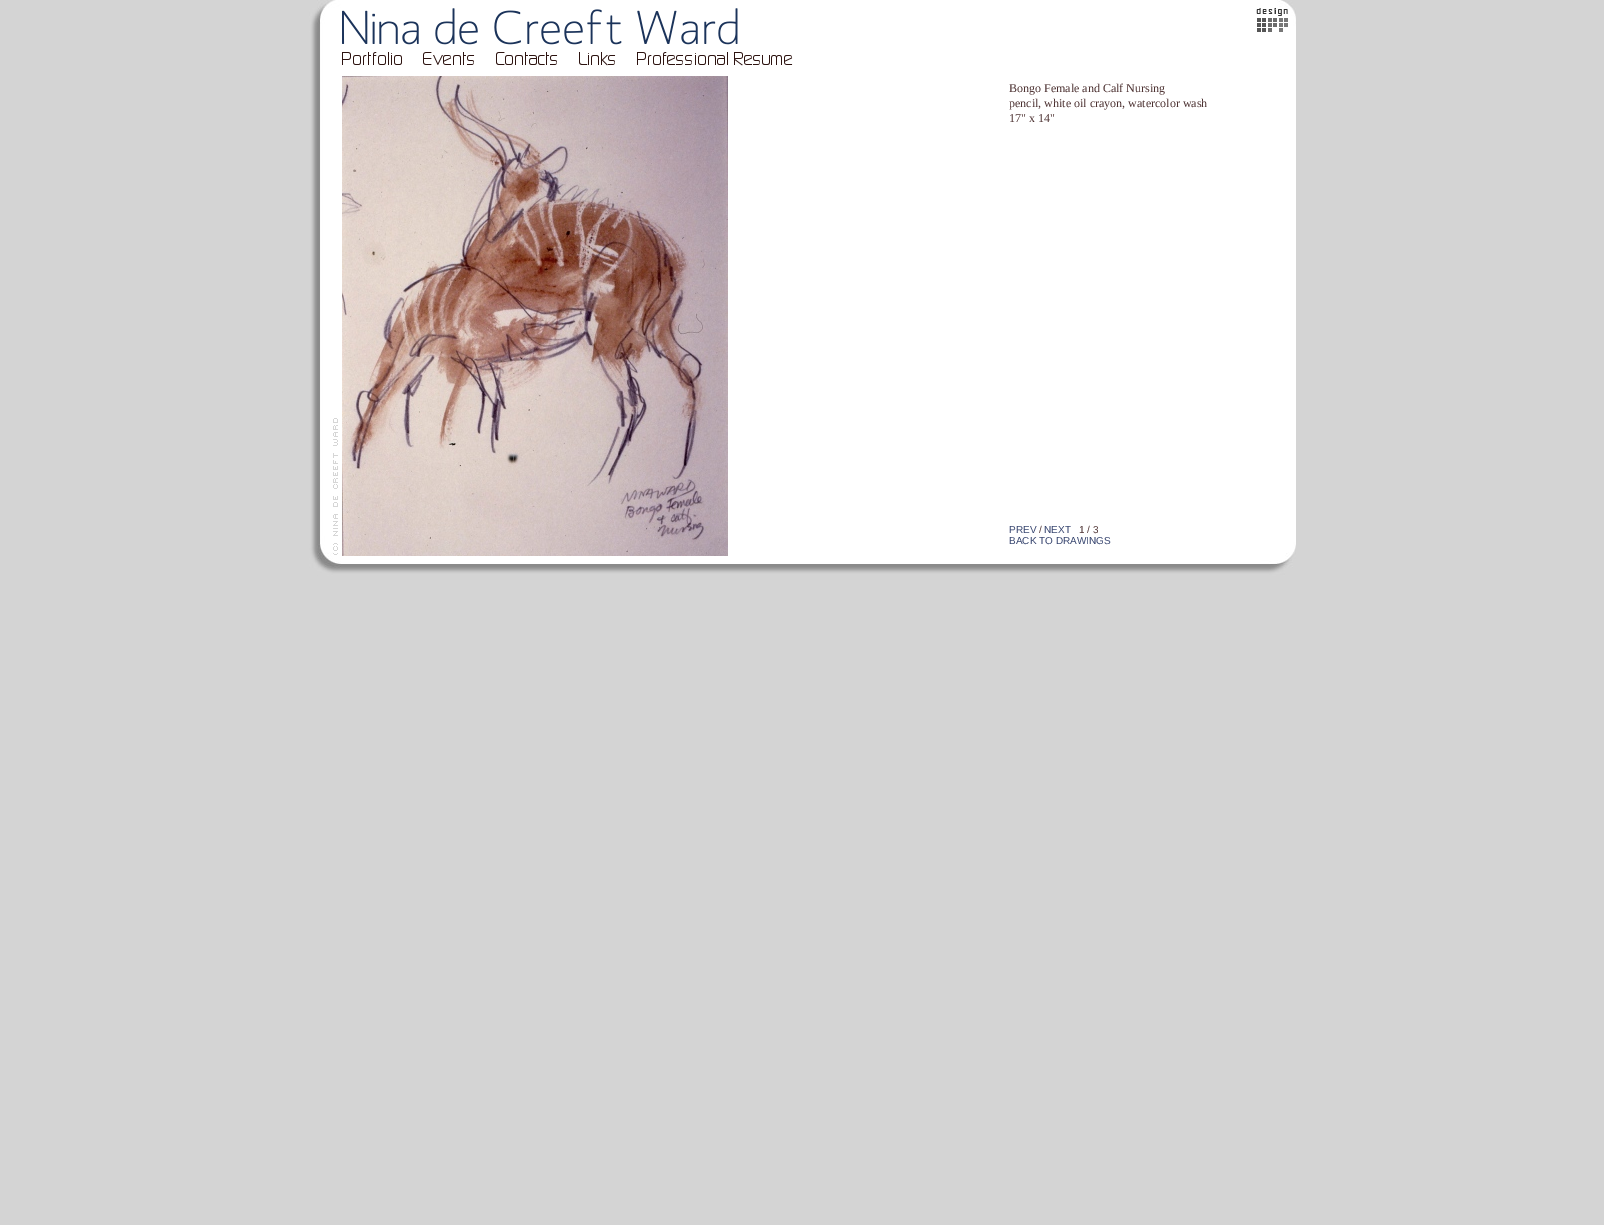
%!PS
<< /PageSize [1604 1225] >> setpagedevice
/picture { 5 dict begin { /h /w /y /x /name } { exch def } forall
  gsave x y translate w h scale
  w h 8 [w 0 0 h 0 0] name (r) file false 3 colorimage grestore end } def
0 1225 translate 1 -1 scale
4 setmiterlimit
0.831 setgray
0 0 1604 1225 rectfill
(img1.rgb) 309 0 987 576 picture
(img2.rgb) 342 8 396 37 picture
(img3.rgb) 1256 8 32 24 picture
(img4.rgb) 342 52 60 13 picture
(img5.rgb) 423 52 52 13 picture
(img6.rgb) 496 52 62 13 picture
(img7.rgb) 579 52 37 14 picture
(img8.rgb) 637 52 156 14 picture
(img9.rgb) 342 76 386 480 picture
/LiberationSerif-Regular [12 0 0 -12 0 0] selectfont
0.302 0.196 0.196 setrgbcolor
1009 92 moveto (Bongo Female and Calf Nursing) show
1009 107 moveto (pencil, white oil crayon, watercolor wash) show
1009 122 moveto (17" x 14") show
(img10.rgb) 333 418 5 137 picture
/LiberationSans-Regular [10 0 0 -10 0 0] selectfont
0.22 0.275 0.439 setrgbcolor
1009 533 moveto (PREV) show
0.302 0.196 0.196 setrgbcolor
1039 533 moveto (/) show
0.22 0.275 0.439 setrgbcolor
1044 533 moveto (NEXT) show
0.302 0.196 0.196 setrgbcolor
1079 533 moveto (1 / 3) show
0.22 0.275 0.439 setrgbcolor
1009 544 moveto (BACK TO DRAWINGS) show
showpage
